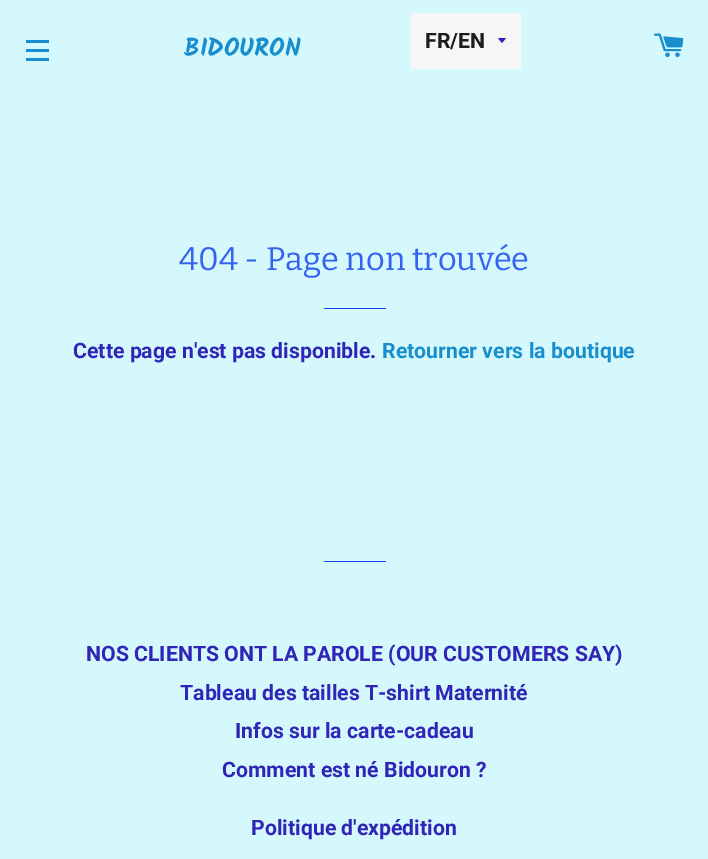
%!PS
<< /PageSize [708 859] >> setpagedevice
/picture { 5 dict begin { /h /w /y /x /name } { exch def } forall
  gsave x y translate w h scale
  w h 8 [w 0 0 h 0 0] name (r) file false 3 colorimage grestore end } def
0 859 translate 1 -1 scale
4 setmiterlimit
0.831 0.973 0.988 setrgbcolor
0 0 708 859 rectfill
0.094 0.557 0.808 setrgbcolor
26 40 23 3 rectfill
26 49 23 3 rectfill
26 58 23 3 rectfill
/Kalam-Bold [25 0 0 -25 0 0] selectfont
184 56 moveto (BIDOURON) show
0.965 setgray
411 13 110 56 rectfill
gsave
498 38 10 6 rectclip
0.188 0.145 0.718 setrgbcolor
newpath 497.5 37.5 moveto 502 43 lineto 506.5 37.5 lineto closepath fill
grestore
/Roboto-Bold [21.25 0 0 -21.25 0 0] selectfont
0.11 0.114 0.114 setrgbcolor
425 48 moveto (FR/EN) show
(img1.rgb) 654 33 30 25 picture
/Bitter-Regular [32.5 0 0 -32.5 0 0] selectfont
0.208 0.384 0.945 setrgbcolor
179 270 moveto (404 - Page non trouvée) show
0.067 0.275 0.918 setrgbcolor
324 308 62 1 rectfill
/Roboto-Bold [21.25 0 0 -21.25 0 0] selectfont
0.188 0.145 0.718 setrgbcolor
73 358 moveto (Cette page n'est pas disponible.) show
0.094 0.557 0.808 setrgbcolor
382 358 moveto (Retourner vers la boutique) show
0.067 0.275 0.918 setrgbcolor
324 561 62 1 rectfill
0.188 0.145 0.718 setrgbcolor
86 661 moveto (NOS CLIENTS ONT LA PAROLE \(OUR CUSTOMERS SAY\)) show
180 700 moveto (Tableau des tailles T-shirt Maternité) show
235 738 moveto (Infos sur la carte-cadeau) show
222 777 moveto (Comment est né Bidouron ?) show
251 835 moveto (Politique d'expédition) show
showpage
